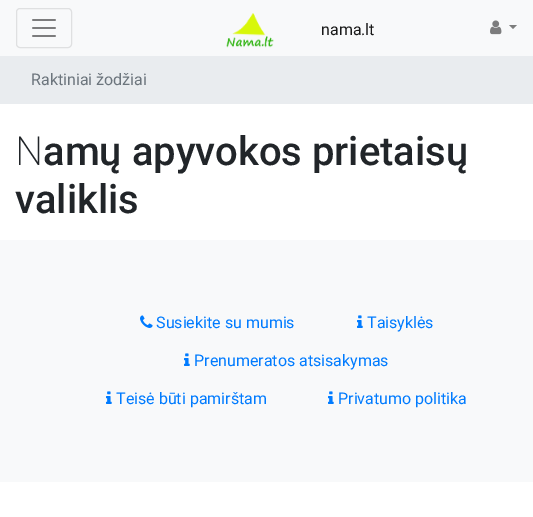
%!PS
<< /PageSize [533 517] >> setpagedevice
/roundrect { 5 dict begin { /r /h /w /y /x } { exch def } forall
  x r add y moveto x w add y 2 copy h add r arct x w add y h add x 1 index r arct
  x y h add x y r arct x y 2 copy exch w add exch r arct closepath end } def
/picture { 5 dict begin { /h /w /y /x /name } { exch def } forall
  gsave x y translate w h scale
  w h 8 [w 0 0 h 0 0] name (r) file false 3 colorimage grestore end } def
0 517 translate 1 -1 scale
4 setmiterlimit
1 setgray
0 0 533 517 rectfill
0.973 0.976 0.98 setrgbcolor
0 0 533 56 rectfill
0.875 0.878 0.882 setrgbcolor
16.5 8.5 55 39 3.5 roundrect stroke
(img1.rgb) 32 19 24 18 picture
(img2.rgb) 226 13 48 35 picture
/Roboto-Regular [16 0 0 -16 0 0] selectfont
0.098 setgray
321 35 moveto (nama.lt) show
(img3.rgb) 490 20 12 15 picture
0.486 0.49 0.49 setrgbcolor
newpath 509 25 moveto 517 25 lineto 513 29 lineto closepath fill
0.914 0.925 0.937 setrgbcolor
0 56 533 48 rectfill
0.424 0.459 0.49 setrgbcolor
31 85 moveto (Raktiniai žodžiai) show
/NotoSans-ExtraLight [40 0 0 -40 0 0] selectfont
0.129 0.145 0.161 setrgbcolor
15 165 moveto (N) show
/Roboto-Medium [40 0 0 -40 0 0] selectfont
43 165 moveto (amų apyvokos prietaisų) show
15 213 moveto (valiklis) show
0.973 0.976 0.98 setrgbcolor
0 240 533 242 rectfill
(img4.rgb) 140 315 13 13 picture
/Roboto-Regular [16 0 0 -16 0 0] selectfont
0 0.482 1 setrgbcolor
156 328 moveto (Susiekite su mumis) show
(img5.rgb) 357 315 6 13 picture
367 328 moveto (Taisyklės) show
(img5.rgb) 184 353 6 13 picture
194 366 moveto (Prenumeratos atsisakymas) show
(img5.rgb) 106 391 6 13 picture
116 404 moveto (Teisė būti pamirštam) show
(img5.rgb) 328 391 6 13 picture
338 404 moveto (Privatumo politika) show
showpage
